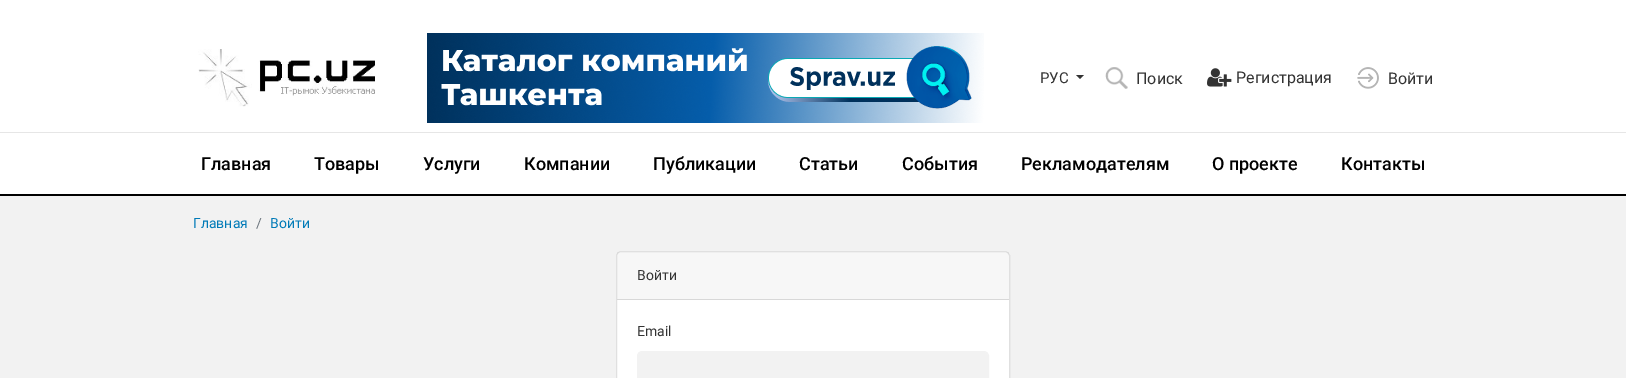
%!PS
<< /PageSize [1626 378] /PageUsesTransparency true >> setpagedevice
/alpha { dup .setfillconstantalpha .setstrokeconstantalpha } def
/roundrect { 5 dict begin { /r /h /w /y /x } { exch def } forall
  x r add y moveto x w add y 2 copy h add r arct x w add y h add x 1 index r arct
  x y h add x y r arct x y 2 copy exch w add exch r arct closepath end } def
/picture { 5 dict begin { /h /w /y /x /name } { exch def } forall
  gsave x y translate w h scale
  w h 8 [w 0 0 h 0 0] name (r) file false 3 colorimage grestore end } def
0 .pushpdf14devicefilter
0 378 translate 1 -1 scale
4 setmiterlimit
0.949 setgray
0 0 1626 378 rectfill
1 setgray
0 0 1626 194 rectfill
(img1.rgb) 198 49 177 58 picture
(img2.rgb) 427 33 557 90 picture
/Roboto-Regular [15 0 0 -15 0 0] selectfont
0.2 setgray
1040 83 moveto (РУС) show
newpath 1076 75 moveto 1084 75 lineto 1080 79 lineto closepath fill
(img3.rgb) 1105 67 23 22 picture
/Roboto-Regular [16 0 0 -16 0 0] selectfont
1136 84 moveto (Поиск) show
(img4.rgb) 1207 68 25 19 picture
1236 83 moveto (Регистрация) show
(img5.rgb) 1357 67 22 22 picture
1388 84 moveto (Войти) show
0.902 setgray
0 132 1626 1 rectfill
0 setgray
0 194 1626 2 rectfill
/Roboto-Medium [18 0 0 -18 0 0] selectfont
201 170 moveto (Главная) show
314 170 moveto (Товары) show
423 170 moveto (Услуги) show
524 170 moveto (Компании) show
653 170 moveto (Публикации) show
799 170 moveto (Статьи) show
902 170 moveto (События) show
1021 170 moveto (Рекламодателям) show
1212 170 moveto (О проекте) show
1341 170 moveto (Контакты) show
/Roboto-Regular [14 0 0 -14 0 0] selectfont
0 0.478 0.718 setrgbcolor
193 228 moveto (Главная) show
0.424 0.459 0.49 setrgbcolor
256 228 moveto (/) show
0 0.478 0.718 setrgbcolor
270 228 moveto (Войти) show
1 setgray
616 251 394 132 5 roundrect fill
0.12 alpha
0 setgray
616.5 251.5 393 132 4.5 roundrect stroke
0.03 alpha
617 252 392 47 rectfill
1 alpha
0.847 setgray
617 299 392 1 rectfill
0.2 setgray
637 280 moveto (Войти) show
637 336 moveto (Email) show
0.949 setgray
638 352 350 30 4 roundrect fill
637.5 351.5 351 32 4.5 roundrect stroke
.poppdf14devicefilter showpage
